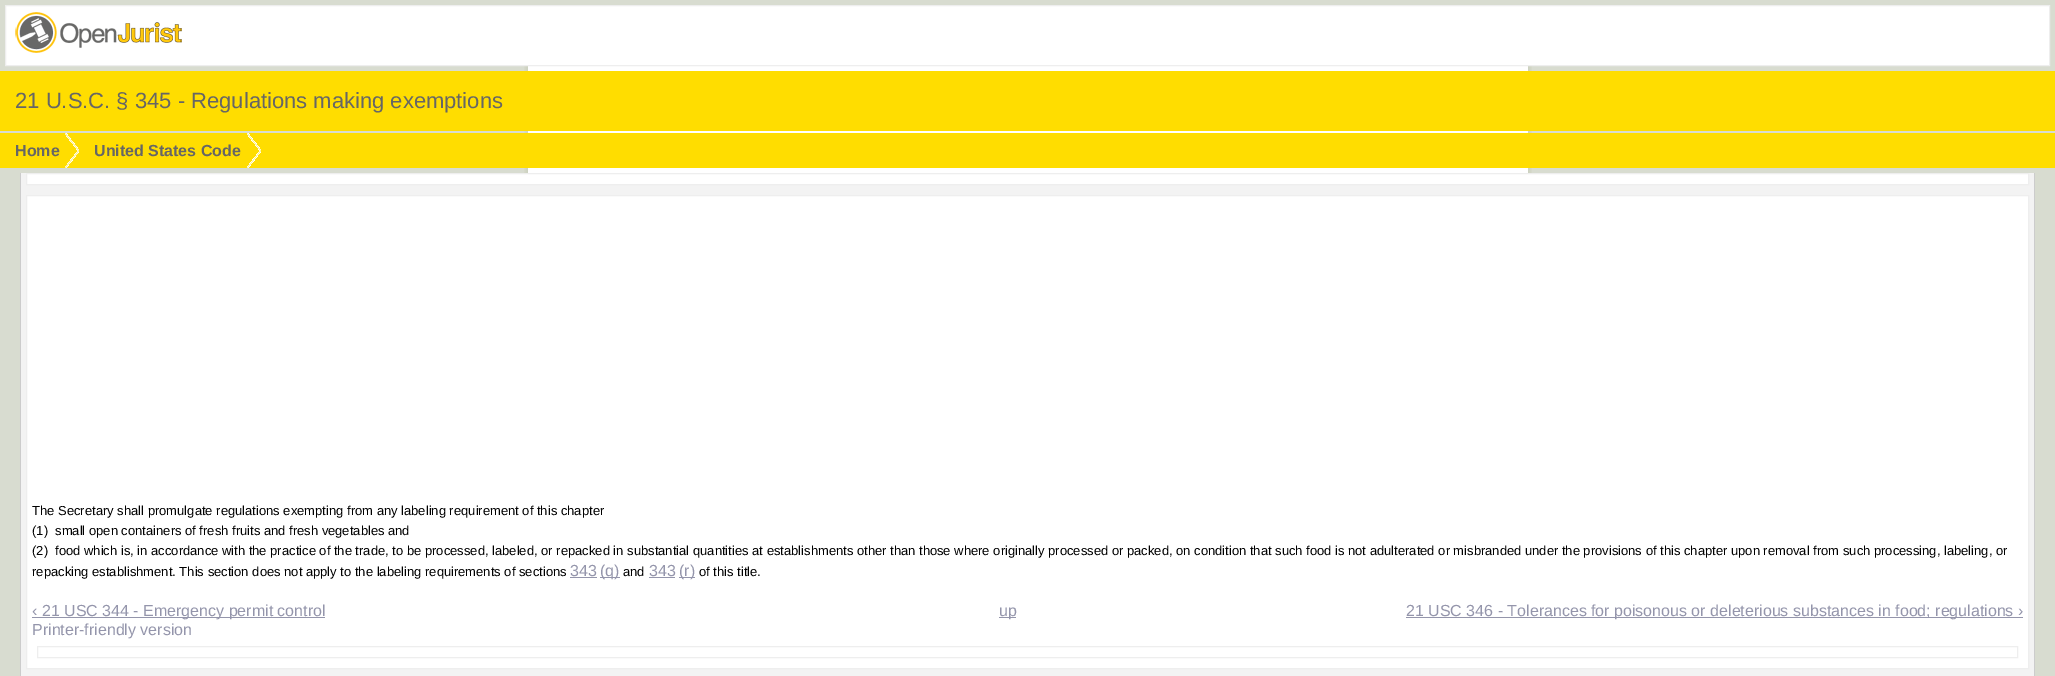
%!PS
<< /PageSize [2055 676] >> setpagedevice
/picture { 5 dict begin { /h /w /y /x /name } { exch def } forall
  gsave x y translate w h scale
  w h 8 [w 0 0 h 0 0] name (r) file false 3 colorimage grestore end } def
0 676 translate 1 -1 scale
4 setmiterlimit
0.847 0.863 0.816 setrgbcolor
0 0 2055 676 rectfill
(img1.rgb) 524 66 1008 107 picture
1 setgray
newpath 5.5 5.5 moveto 2049.5 5.5 lineto 2049.5 65.5 lineto 5.5 65.5 lineto closepath gsave fill grestore
0.933 setgray
stroke
(img2.rgb) 15 12 167 41 picture
1 0.867 0 setrgbcolor
0 71 2055 60 rectfill
/LiberationSans-Regular [22 0 0 -22 0 0] selectfont
0.4 setgray
15 108 moveto (21 U.S.C. § 345 - Regulations making exemptions) show
1 0.867 0 setrgbcolor
0 133 2055 35 rectfill
(img3.rgb) 65 133 14 35 picture
/LiberationSans-Bold [16 0 0 -16 0 0] selectfont
0.4 setgray
15 156 moveto (Home) show
(img4.rgb) 247 133 14 35 picture
94 156 moveto (United States Code) show
0.953 setgray
21 173 2013 503 rectfill
0.8 setgray
2034 173 1 503 rectfill
20 173 1 503 rectfill
1 setgray
newpath 26.5 173.5 moveto 2028.5 173.5 lineto 2028.5 184.5 lineto 26.5 184.5 lineto closepath gsave fill grestore
0.933 setgray
stroke
1 setgray
newpath 26.5 195.5 moveto 2028.5 195.5 lineto 2028.5 668.5 lineto 26.5 668.5 lineto closepath gsave fill grestore
0.933 setgray
stroke
/LiberationSans-Regular [13 0 0 -13 0 0] selectfont
0 setgray
32 515 moveto (The Secretary shall promulgate regulations exempting from any labeling requirement of this chapter) show
32 535 moveto (\(1\)) show
55 535 moveto (small open containers of fresh fruits and fresh vegetables and) show
32 555 moveto (\(2\)) show
55 555 moveto (food which is, in accordance with the practice of the trade, to be processed, labeled, or repacked in substantial quantities at establishments other than those where originally processed or packed, on condition that such food is not adulterated or misbranded under the provisions of this chapter upon removal from such processing, labeling, or) show
32 576 moveto (repacking establishment. This section does not apply to the labeling requirements of sections) show
/LiberationSans-Regular [16 0 0 -16 0 0] selectfont
0.58 0.584 0.671 setrgbcolor
570 576 moveto (343) show
570 577 27 1 rectfill
600 577 20 1 rectfill
600 576 moveto (\(q\)) show
/LiberationSans-Regular [13 0 0 -13 0 0] selectfont
0 setgray
623 576 moveto (and) show
/LiberationSans-Regular [16 0 0 -16 0 0] selectfont
0.58 0.584 0.671 setrgbcolor
649 576 moveto (343) show
649 577 26 1 rectfill
679 577 16 1 rectfill
679 576 moveto (\(r\)) show
/LiberationSans-Regular [13 0 0 -13 0 0] selectfont
0 setgray
699 576 moveto (of this title.) show
0.58 0.584 0.671 setrgbcolor
32 617 293 1 rectfill
/LiberationSans-Regular [16 0 0 -16 0 0] selectfont
32 616 moveto (‹ 21 USC 344 - Emergency permit control) show
999 617 17 1 rectfill
999 616 moveto (up) show
1406 617 617 1 rectfill
1406 616 moveto (21 USC 346 - Tolerances for poisonous or deleterious substances in food; regulations ›) show
32 635 moveto (Printer-friendly version) show
0.933 setgray
37.5 646.5 1980 11 rectstroke
showpage
